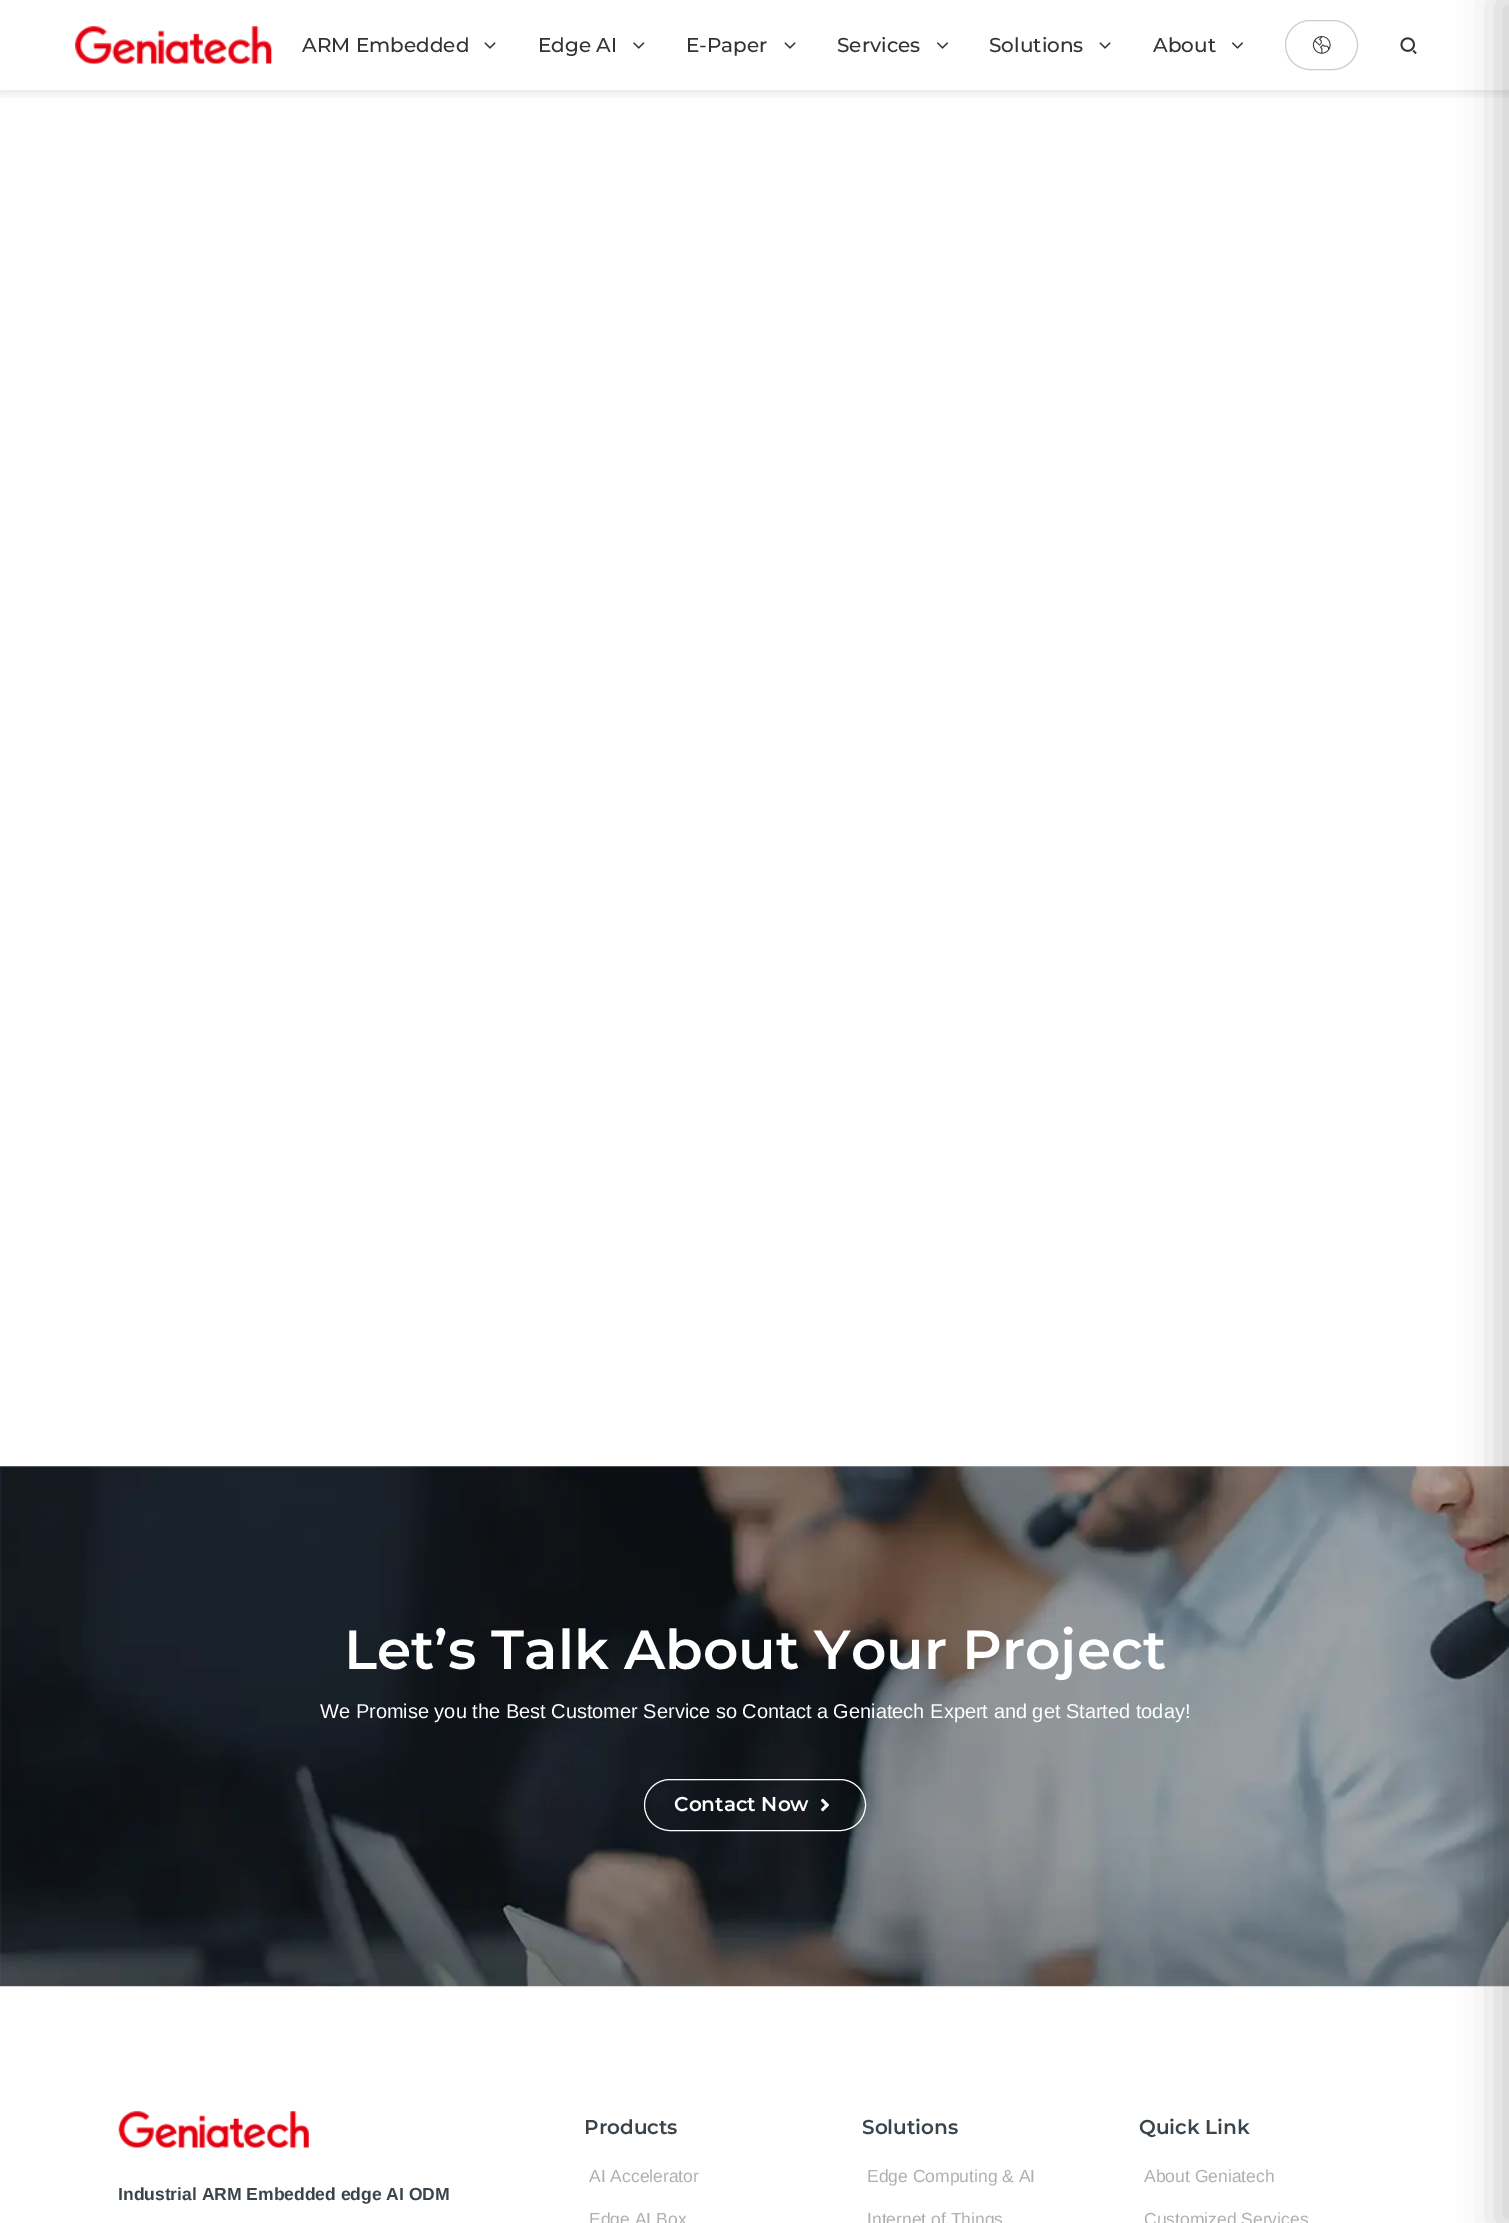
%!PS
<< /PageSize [1509 2223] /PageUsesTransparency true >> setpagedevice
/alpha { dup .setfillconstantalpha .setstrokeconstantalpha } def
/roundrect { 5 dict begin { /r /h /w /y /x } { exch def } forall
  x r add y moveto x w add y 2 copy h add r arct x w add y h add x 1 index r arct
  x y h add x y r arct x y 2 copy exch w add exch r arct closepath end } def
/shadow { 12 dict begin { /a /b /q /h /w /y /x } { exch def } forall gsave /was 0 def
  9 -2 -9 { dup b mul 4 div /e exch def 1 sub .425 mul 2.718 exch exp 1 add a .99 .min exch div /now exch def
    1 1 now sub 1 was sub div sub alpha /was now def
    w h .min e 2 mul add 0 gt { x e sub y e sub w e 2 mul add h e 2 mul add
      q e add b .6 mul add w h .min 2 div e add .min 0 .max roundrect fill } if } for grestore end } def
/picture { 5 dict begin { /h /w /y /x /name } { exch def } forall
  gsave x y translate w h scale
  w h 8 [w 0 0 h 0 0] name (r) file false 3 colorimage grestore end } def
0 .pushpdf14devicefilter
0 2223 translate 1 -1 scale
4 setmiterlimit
1 setgray
0 0 1509 2223 rectfill
gsave
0 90 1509 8 rectclip
0 setgray
0 3 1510 90 0 6 0.1 shadow
grestore
(img1.rgb) 75 26 197 38 picture
/Montserrat-Medium [20 0 0 -20 0 0] selectfont
0.2 setgray
302 52 moveto (ARM Embedded) show
(img2.rgb) 484 42 12 7 picture
538 52 moveto (Edge AI) show
(img3.rgb) 633 42 12 7 picture
686 52 moveto (E-Paper) show
(img2.rgb) 784 42 12 7 picture
837 52 moveto (Services) show
(img4.rgb) 937 42 11 7 picture
989 52 moveto (Solutions) show
(img2.rgb) 1099 42 12 7 picture
1153 52 moveto (About) show
(img4.rgb) 1232 42 11 7 picture
0.8 setgray
1285.5 20.5 72 49 24.5 roundrect stroke
(img5.rgb) 1312 36 19 18 picture
(img6.rgb) 1400 37 17 18 picture
(img7.rgb) 0 1466 1509 521 picture
0 setgray
1498 0 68 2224 0 19 0.2 shadow
/Montserrat-SemiBold [55 0 0 -55 0 0] selectfont
1 setgray
344 1669 moveto (Let’s Talk About Your Project) show
/LiberationSans-Regular [20 0 0 -20 0 0] selectfont
320 1718 moveto (We Promise you the Best Customer Service so Contact a Geniatech Expert and get Started today!) show
644.5 1779.5 221 51 25.5 roundrect stroke
/Montserrat-SemiBold [20 0 0 -20 0 0] selectfont
674 1811 moveto (Contact Now) show
(img8.rgb) 821 1798 8 14 picture
(img9.rgb) 118 2111 191 37 picture
/LiberationSans-Bold [17.5 0 0 -17.5 0 0] selectfont
0.227 0.267 0.29 setrgbcolor
118 2200 moveto (Industrial ARM Embedded edge AI ODM) show
/Montserrat-SemiBold [20 0 0 -20 0 0] selectfont
584 2134 moveto (Products) show
/LiberationSans-Regular [17.5 0 0 -17.5 0 0] selectfont
0.686 setgray
589 2182 moveto (AI Accelerator) show
589 2225 moveto (Edge AI Box) show
/Montserrat-SemiBold [20 0 0 -20 0 0] selectfont
0.227 0.267 0.29 setrgbcolor
862 2134 moveto (Solutions) show
/LiberationSans-Regular [17.5 0 0 -17.5 0 0] selectfont
0.686 setgray
867 2182 moveto (Edge Computing & AI) show
867 2225 moveto (Internet of Things) show
/Montserrat-SemiBold [20 0 0 -20 0 0] selectfont
0.227 0.267 0.29 setrgbcolor
1139 2134 moveto (Quick Link) show
/LiberationSans-Regular [17.5 0 0 -17.5 0 0] selectfont
0.686 setgray
1144 2182 moveto (About Geniatech) show
1144 2225 moveto (Customized Services) show
.poppdf14devicefilter showpage
